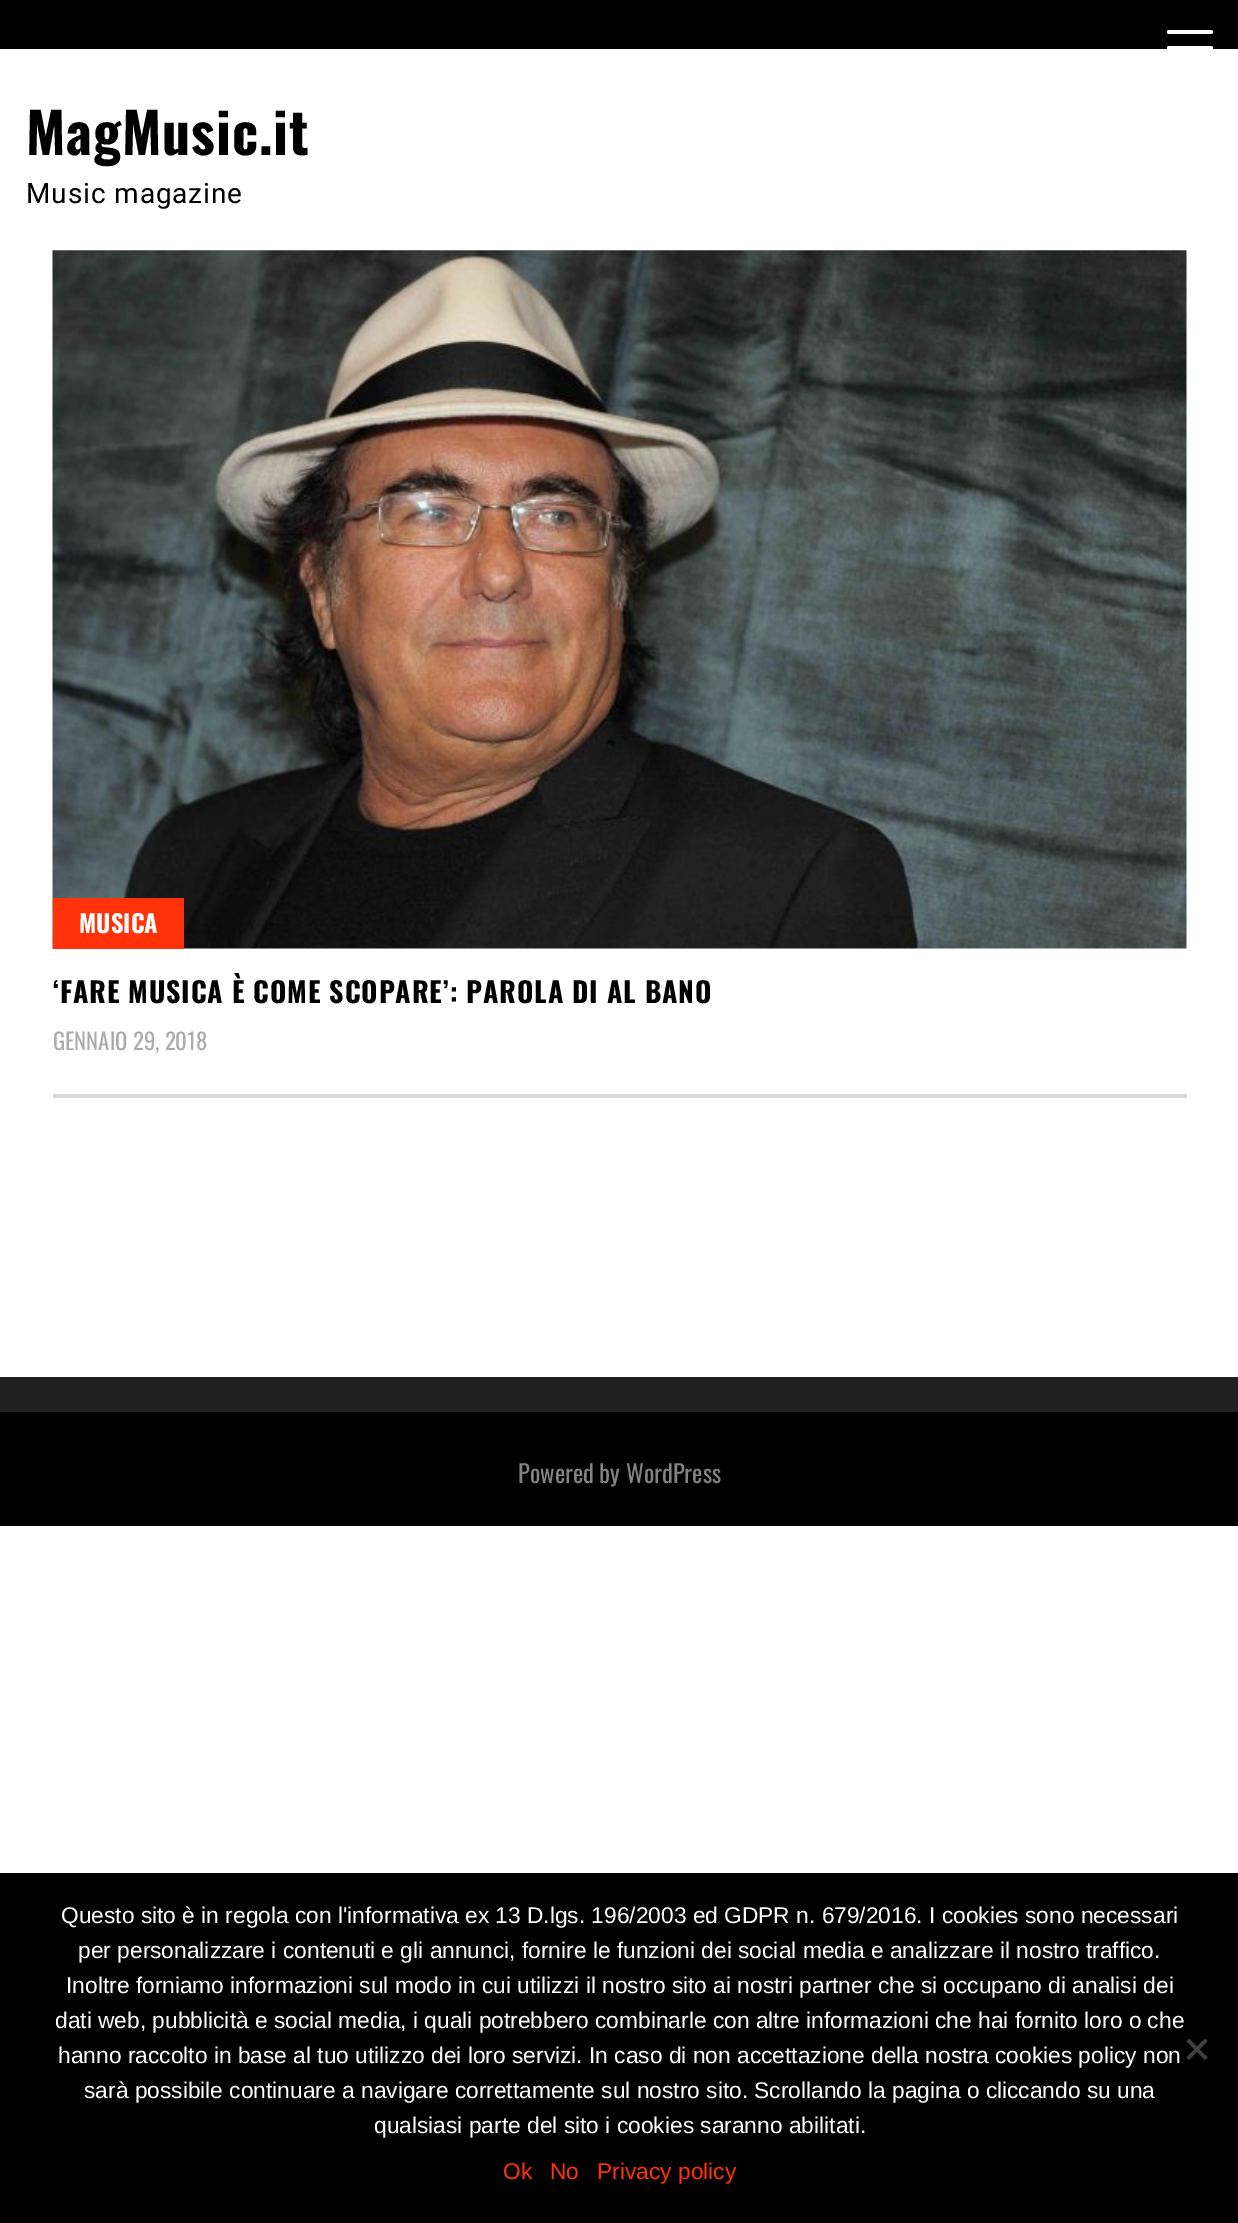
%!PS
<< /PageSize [1238 2223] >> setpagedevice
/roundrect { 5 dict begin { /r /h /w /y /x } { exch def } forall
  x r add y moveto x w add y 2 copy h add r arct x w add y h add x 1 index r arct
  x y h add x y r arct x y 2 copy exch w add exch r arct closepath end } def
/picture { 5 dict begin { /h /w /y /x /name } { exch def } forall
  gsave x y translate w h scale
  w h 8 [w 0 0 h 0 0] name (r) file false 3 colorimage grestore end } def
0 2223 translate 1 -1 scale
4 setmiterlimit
1 setgray
0 0 1238 2223 rectfill
0 setgray
0 0 1238 49 rectfill
1 setgray
1167 46 46 4 2 roundrect fill
1167 30 46 4 2 roundrect fill
/Oswald-Bold [56 0 0 -56 0 0] selectfont
0 setgray
26 155 moveto 0.9 0 (MagMusic.it) ashow
/Roboto-Regular [28 0 0 -28 0 0] selectfont
26 203 moveto 0.9 0 (Music magazine) ashow
0.843 setgray
53 1094 1134 4 rectfill
(img1.rgb) 52 250 1135 699 picture
1 0.196 0.035 setrgbcolor
53 898 131 51 rectfill
/Oswald-Bold [24.5 0 0 -24.5 0 0] selectfont
1 setgray
79 933 moveto (MUSICA) show
/Oswald-Bold [28 0 0 -28 0 0] selectfont
0 setgray
53 1003 moveto 0.9 0 (‘FARE MUSICA È COME SCOPARE’: PAROLA DI AL BANO) ashow
/Oswald-Regular [22.75 0 0 -22.75 0 0] selectfont
0.671 setgray
53 1050 moveto (GENNAIO 29, 2018) show
0.125 setgray
0 1377 1238 35 rectfill
0 setgray
0 1412 1238 114 rectfill
/Oswald-Regular [24.5 0 0 -24.5 0 0] selectfont
0.514 setgray
518 1483 moveto (Powered by WordPress) show
0 setgray
0 1873 1238 350 rectfill
/LiberationSans-Regular [22.75 0 0 -22.75 0 0] selectfont
1 setgray
61 1923 moveto (Questo sito è in regola con l'informativa ex 13 D.lgs. 196/2003 ed GDPR n. 679/2016. I cookies sono necessari) show
78 1958 moveto (per personalizzare i contenuti e gli annunci, fornire le funzioni dei social media e analizzare il nostro traffico.) show
66 1993 moveto (Inoltre forniamo informazioni sul modo in cui utilizzi il nostro sito ai nostri partner che si occupano di analisi dei) show
55 2028 moveto (dati web, pubblicità e social media, i quali potrebbero combinarle con altre informazioni che hai fornito loro o che) show
58 2063 moveto (hanno raccolto in base al tuo utilizzo dei loro servizi. In caso di non accettazione della nostra cookies policy non) show
84 2098 moveto (sarà possibile continuare a navigare correttamente sul nostro sito. Scrollando la pagina o cliccando su una) show
374 2133 moveto (qualsiasi parte del sito i cookies saranno abilitati.) show
0.251 setgray
newpath 1205 2038.5 moveto 1207.5 2041 lineto 1189 2060 lineto 1186.5 2057.5 lineto closepath fill
newpath 1186.5 2041 moveto 1189 2038.5 lineto 1207.5 2057.5 lineto 1205 2060 lineto closepath fill
1 0.196 0.035 setrgbcolor
503 2179 moveto (Ok) show
550 2179 moveto (No) show
597 2179 moveto (Privacy policy) show
showpage
